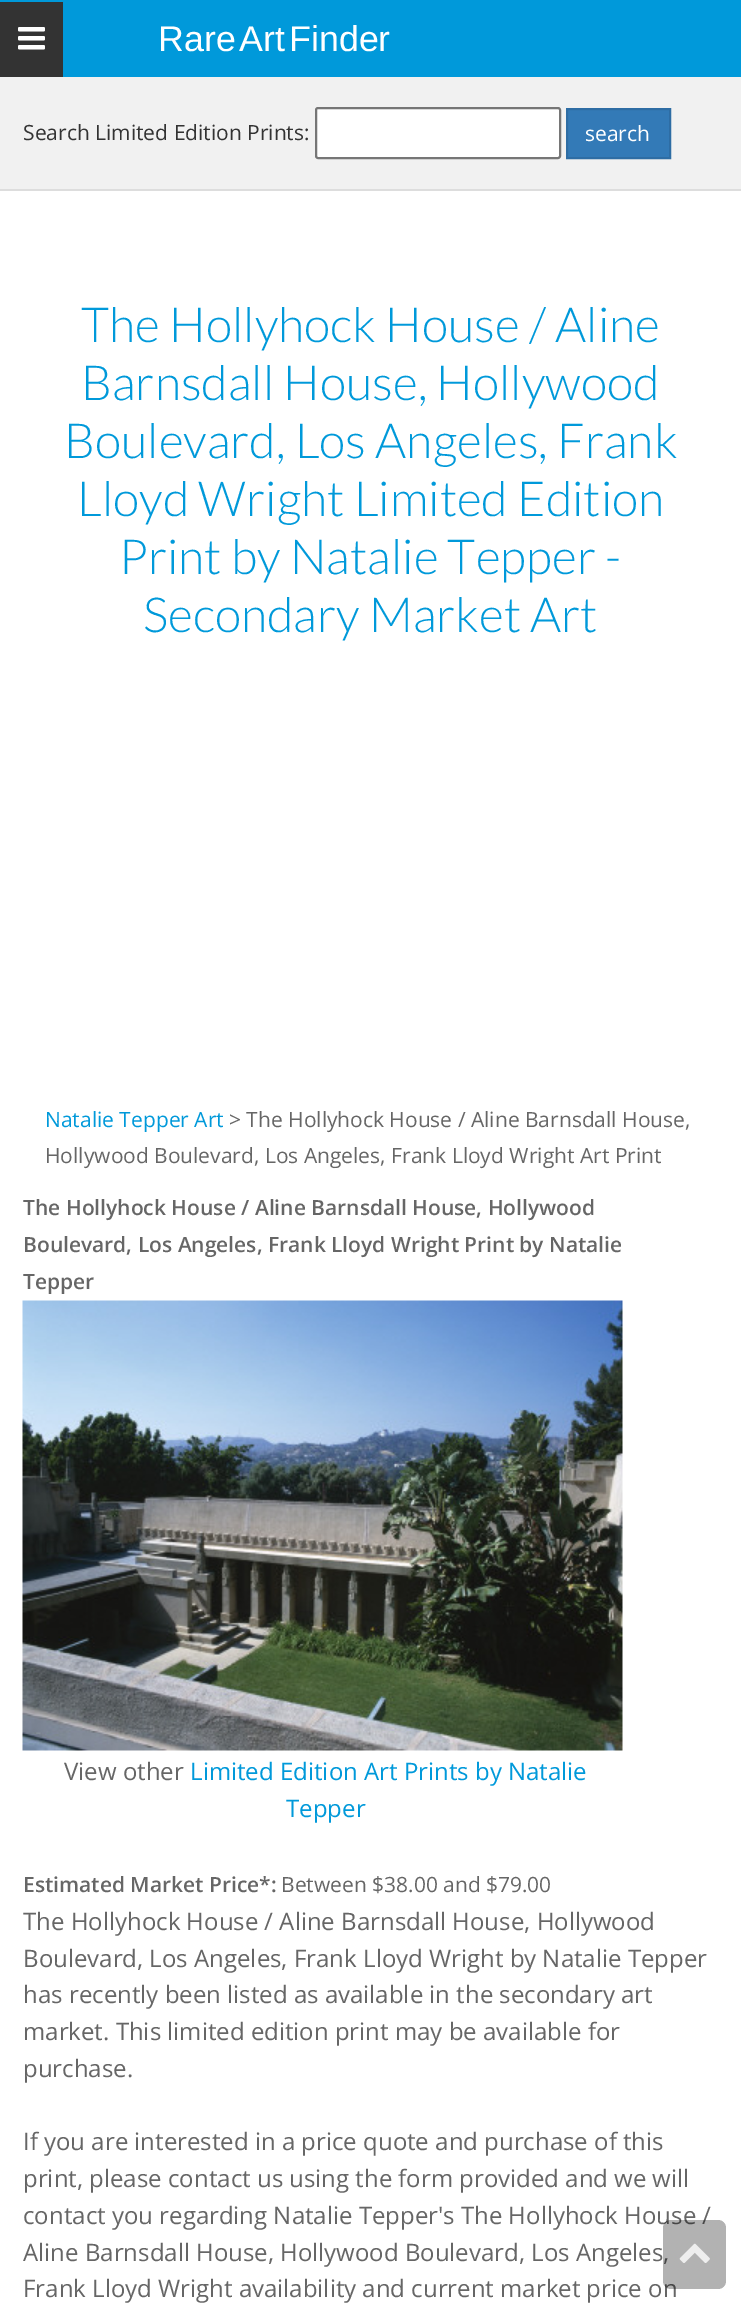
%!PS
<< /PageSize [741 2303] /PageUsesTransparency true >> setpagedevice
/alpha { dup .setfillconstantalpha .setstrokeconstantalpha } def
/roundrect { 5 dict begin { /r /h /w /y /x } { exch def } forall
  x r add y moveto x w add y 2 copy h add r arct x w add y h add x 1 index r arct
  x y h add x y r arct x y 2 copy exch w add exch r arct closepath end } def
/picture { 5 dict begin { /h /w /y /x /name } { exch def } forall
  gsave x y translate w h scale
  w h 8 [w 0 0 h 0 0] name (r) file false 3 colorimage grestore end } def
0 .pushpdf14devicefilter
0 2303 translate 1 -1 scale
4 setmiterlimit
1 setgray
0 0 741 2303 rectfill
0 0.6 0.855 setrgbcolor
0 0 741 77 rectfill
0.2 setgray
0 2 63 75 rectfill
(img1.rgb) 18 27 27 23 picture
/LiberationSans-Regular [35.75 0 0 -35.75 0 0] selectfont
1 setgray
158 51 moveto -6 0 32 (Rare Art Finder) widthshow
0.945 setgray
0 77 741 112 rectfill
0.867 setgray
0 189 741 2 rectfill
/OpenSans-Regular [21 0 0 -21 0 0] selectfont
0.2 setgray
23 140 moveto (Search Limited Edition Prints:) show
1 setgray
316 108 244 50 2 roundrect gsave fill grestore
0.463 setgray
2 setlinewidth
stroke
0.2 0.478 0.718 setrgbcolor
newpath 567 109 moveto 670 109 lineto 670 158 lineto 567 158 lineto closepath gsave fill grestore
0.18 0.427 0.643 setrgbcolor
stroke
1 setgray
585 141 moveto (search) show
/Lato-Light [48.25 0 0 -48.25 0 0] selectfont
0 0.6 0.855 setrgbcolor
81 342 moveto (The Hollyhock House / Aline) show
81 400 moveto (Barnsdall House, Hollywood) show
64 458 moveto (Boulevard, Los Angeles, Frank) show
77 516 moveto (Lloyd Wright Limited Edition) show
119 574 moveto (Print by Natalie Tepper -) show
143 632 moveto (Secondary Market Art) show
/OpenSans-Regular [21 0 0 -21 0 0] selectfont
45 1127 moveto (Natalie Tepper Art) show
0.4 setgray
229 1127 moveto (> The Hollyhock House / Aline Barnsdall House,) show
45 1163 moveto (Hollywood Boulevard, Los Angeles, Frank Lloyd Wright Art Print) show
/OpenSans-SemiBold [21 0 0 -21 0 0] selectfont
23 1215 moveto (The Hollyhock House / Aline Barnsdall House, Hollywood) show
23 1252 moveto (Boulevard, Los Angeles, Frank Lloyd Wright Print by Natalie) show
23 1289 moveto (Tepper) show
(img2.rgb) 22 1300 601 451 picture
/OpenSans-Regular [24 0 0 -24 0 0] selectfont
64 1780 moveto (View other) show
0 0.6 0.855 setrgbcolor
190 1780 moveto (Limited Edition Art Prints by Natalie) show
286 1817 moveto (Tepper) show
/OpenSans-SemiBold [21 0 0 -21 0 0] selectfont
0.4 setgray
23 1892 moveto (Estimated Market Price*:) show
/OpenSans-Regular [21 0 0 -21 0 0] selectfont
281 1892 moveto (Between $38.00 and $79.00) show
/OpenSans-Regular [24 0 0 -24 0 0] selectfont
23 1930 moveto (The Hollyhock House / Aline Barnsdall House, Hollywood) show
23 1967 moveto (Boulevard, Los Angeles, Frank Lloyd Wright by Natalie Tepper) show
23 2003 moveto (has recently been listed as available in the secondary art) show
23 2040 moveto (market. This limited edition print may be available for) show
23 2077 moveto (purchase.) show
23 2150 moveto (If you are interested in a price quote and purchase of this) show
23 2187 moveto (print, please contact us using the form provided and we will) show
23 2224 moveto (contact you regarding Natalie Tepper's The Hollyhock House /) show
23 2261 moveto (Aline Barnsdall House, Hollywood Boulevard, Los Angeles,) show
23 2297 moveto (Frank Lloyd Wright availability and current market price on) show
0.3 alpha
0 setgray
663 2220 63 69 8 roundrect fill
1 alpha
(img3.rgb) 679 2243 31 20 picture
.poppdf14devicefilter showpage
